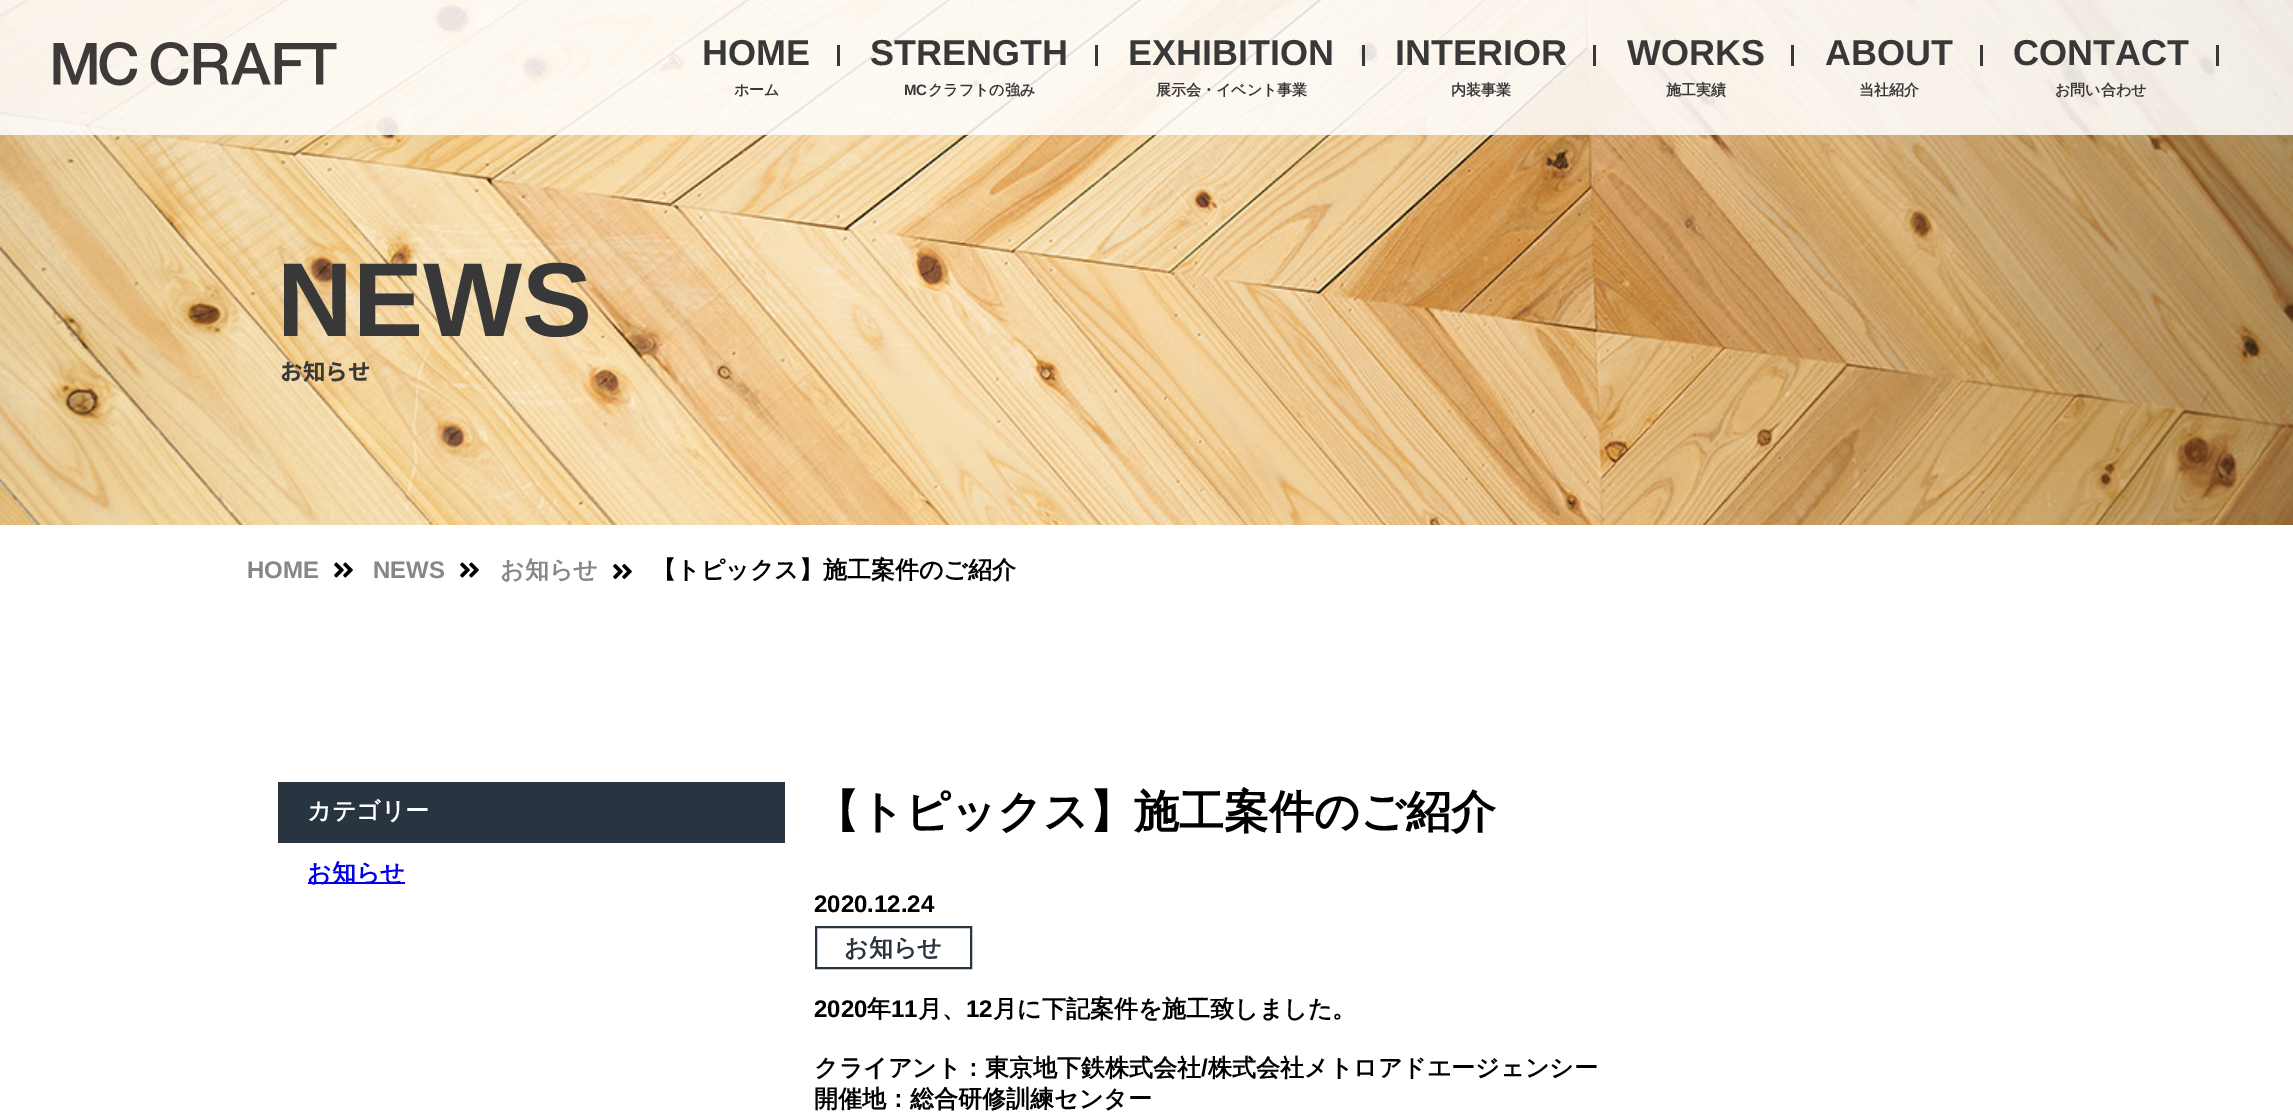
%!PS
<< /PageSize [2293 1116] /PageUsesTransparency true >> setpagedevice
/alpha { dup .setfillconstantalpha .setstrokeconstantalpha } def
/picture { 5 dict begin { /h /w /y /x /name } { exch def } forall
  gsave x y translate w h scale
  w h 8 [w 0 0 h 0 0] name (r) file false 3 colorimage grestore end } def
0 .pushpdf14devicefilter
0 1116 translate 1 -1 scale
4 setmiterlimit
1 setgray
0 0 2293 1116 rectfill
(img2.rgb) 0 0 2293 525 picture
0.85 alpha
0 0 2293 135 rectfill
1 alpha
(img1.rgb) 53 42 284 44 picture
/LiberationSans-Bold [36 0 0 -36 0 0] selectfont
0.22 setgray
702 65 moveto (HOME) show
/WenQuanYiZenHei-Bold [15 0 0 -15 0 0] selectfont
734 95 moveto (ホーム) show
837 45 3 21 rectfill
/LiberationSans-Bold [36 0 0 -36 0 0] selectfont
870 65 moveto (STRENGTH) show
/LiberationSans-Bold [15 0 0 -15 0 0] selectfont
904 95 moveto (MC) show
/WenQuanYiZenHei-Bold [15 0 0 -15 0 0] selectfont
928 95 moveto (クラフトの強み) show
1095 45 3 21 rectfill
/LiberationSans-Bold [36 0 0 -36 0 0] selectfont
1128 65 moveto (EXHIBITION) show
/WenQuanYiZenHei-Bold [15 0 0 -15 0 0] selectfont
1156 95 moveto (展示会・イベント事業) show
1362 45 3 21 rectfill
/LiberationSans-Bold [36 0 0 -36 0 0] selectfont
1395 65 moveto (INTERIOR) show
/WenQuanYiZenHei-Bold [15 0 0 -15 0 0] selectfont
1451 95 moveto (内装事業) show
1593 45 3 21 rectfill
/LiberationSans-Bold [36 0 0 -36 0 0] selectfont
1627 65 moveto (WORKS) show
/WenQuanYiZenHei-Bold [15 0 0 -15 0 0] selectfont
1666 95 moveto (施工実績) show
1791 45 3 21 rectfill
/LiberationSans-Bold [36 0 0 -36 0 0] selectfont
1825 65 moveto (ABOUT) show
/WenQuanYiZenHei-Bold [15 0 0 -15 0 0] selectfont
1859 95 moveto (当社紹介) show
1980 45 3 21 rectfill
/LiberationSans-Bold [36 0 0 -36 0 0] selectfont
2013 65 moveto (CONTACT) show
/WenQuanYiZenHei-Bold [15 0 0 -15 0 0] selectfont
2055 95 moveto (お問い合わせ) show
2216 45 3 21 rectfill
/LiberationSans-Bold [105 0 0 -105 0 0] selectfont
277 336 moveto (NEWS) show
/NotoSansJP-Bold [22.5 0 0 -22.5 0 0] selectfont
280 380 moveto (お知らせ) show
/LiberationSans-Bold [24 0 0 -24 0 0] selectfont
0.529 setgray
247 578 moveto (HOME) show
(img3.rgb) 334 562 19 16 picture
373 578 moveto (NEWS) show
(img3.rgb) 460 562 19 16 picture
/WenQuanYiZenHei-Bold [24 0 0 -24 0 0] selectfont
500 578 moveto (お知らせ) show
(img4.rgb) 613 564 19 15 picture
0 setgray
652 578 moveto (【トピックス】施工案件のご紹介) show
0.157 0.208 0.251 setrgbcolor
278 782 507 61 rectfill
1 setgray
307 819 moveto (カテゴリー) show
0 0 0.933 setrgbcolor
308 882 97 2 rectfill
307 881 moveto (お知らせ) show
/WenQuanYiZenHei-Bold [45 0 0 -45 0 0] selectfont
0 setgray
814 827 moveto (【トピックス】施工案件のご紹介) show
/LiberationSans-Bold [24 0 0 -24 0 0] selectfont
814 912 moveto (2020.12.24) show
0.157 0.208 0.251 setrgbcolor
2 setlinewidth
816 927 155 41 rectstroke
/WenQuanYiZenHei-Bold [24 0 0 -24 0 0] selectfont
844 956 moveto (お知らせ) show
/LiberationSans-Bold [24 0 0 -24 0 0] selectfont
0 setgray
814 1017 moveto (2020) show
/WenQuanYiZenHei-Bold [24 0 0 -24 0 0] selectfont
867 1017 moveto (年) show
/LiberationSans-Bold [24 0 0 -24 0 0] selectfont
891 1017 moveto (11) show
/WenQuanYiZenHei-Bold [24 0 0 -24 0 0] selectfont
918 1017 moveto (月、) show
/LiberationSans-Bold [24 0 0 -24 0 0] selectfont
966 1017 moveto (12) show
/WenQuanYiZenHei-Bold [24 0 0 -24 0 0] selectfont
993 1017 moveto (月に下記案件を施工致しました。) show
814 1076 moveto (クライアント：東京地下鉄株式会社) show
/LiberationSans-Bold [24 0 0 -24 0 0] selectfont
1201 1076 moveto (/) show
/WenQuanYiZenHei-Bold [24 0 0 -24 0 0] selectfont
1208 1076 moveto (株式会社メトロアドエージェンシー) show
814 1107 moveto (開催地：総合研修訓練センター) show
.poppdf14devicefilter showpage
